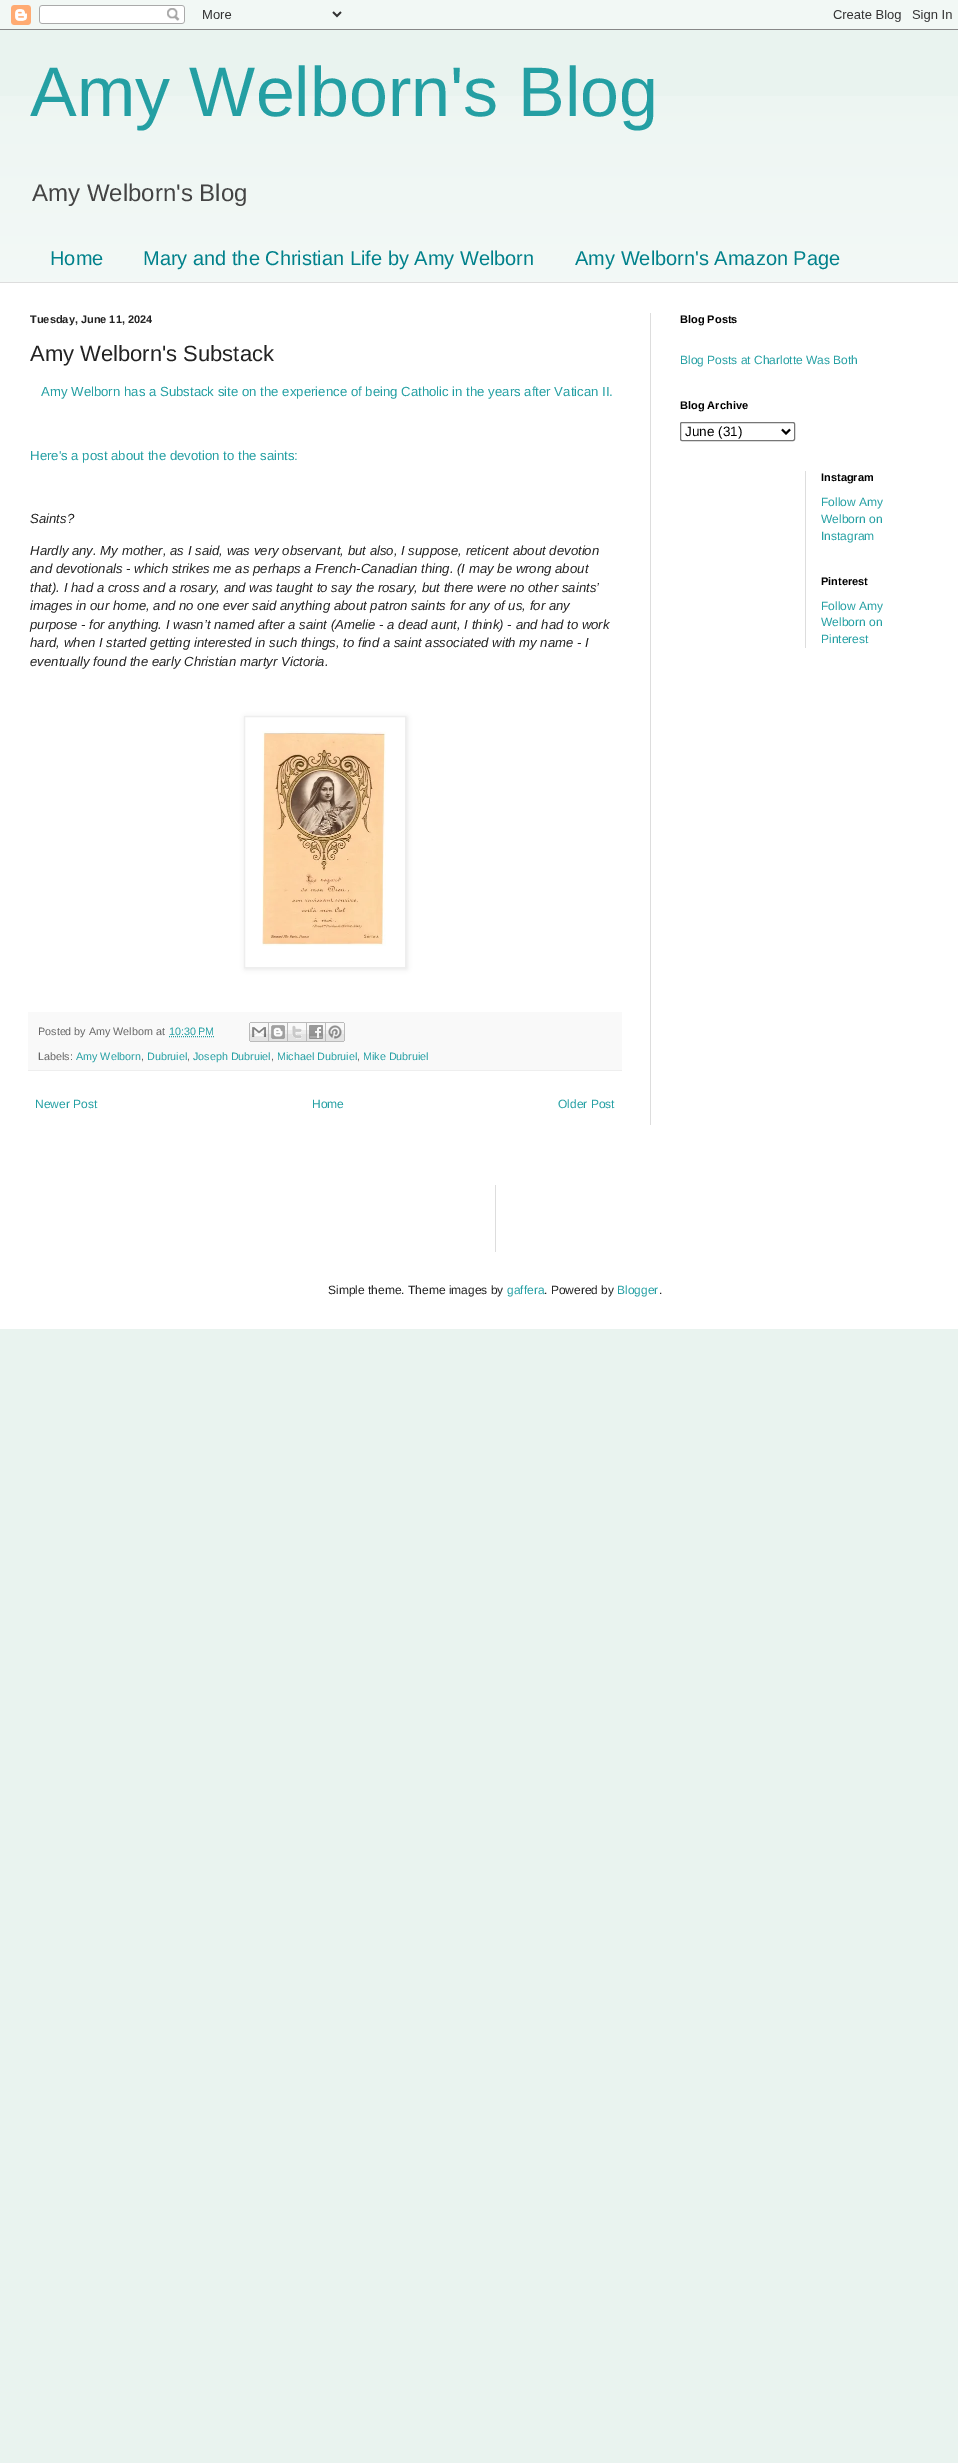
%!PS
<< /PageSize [958 2463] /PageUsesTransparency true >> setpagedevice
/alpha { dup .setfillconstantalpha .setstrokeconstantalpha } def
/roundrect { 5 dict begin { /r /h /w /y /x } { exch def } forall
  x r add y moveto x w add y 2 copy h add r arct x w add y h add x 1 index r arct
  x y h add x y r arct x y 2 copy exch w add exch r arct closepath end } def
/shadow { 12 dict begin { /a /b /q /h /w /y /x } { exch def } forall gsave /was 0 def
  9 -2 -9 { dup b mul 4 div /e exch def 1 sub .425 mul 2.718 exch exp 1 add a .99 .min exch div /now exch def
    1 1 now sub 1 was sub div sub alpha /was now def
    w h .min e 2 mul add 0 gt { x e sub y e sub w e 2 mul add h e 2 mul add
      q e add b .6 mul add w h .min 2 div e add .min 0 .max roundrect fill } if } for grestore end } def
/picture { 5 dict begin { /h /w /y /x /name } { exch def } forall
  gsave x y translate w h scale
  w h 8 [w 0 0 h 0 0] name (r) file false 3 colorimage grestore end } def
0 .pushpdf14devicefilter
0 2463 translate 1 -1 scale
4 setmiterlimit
0.914 0.953 0.937 setrgbcolor
0 0 958 2463 rectfill
(img1.rgb) 0 0 958 30 picture
(img8.rgb) 0 96 958 186 picture
/LiberationSans-Regular [70 0 0 -70 0 0] selectfont
0.141 0.624 0.639 setrgbcolor
30 116 moveto (Amy Welborn's Blog) show
/LiberationSans-Regular [24 0 0 -24 0 0] selectfont
0.267 setgray
32 201 moveto (Amy Welborn's Blog) show
/LiberationSans-Regular [20 0 0 -20 0 0] selectfont
0 0.506 0.545 setrgbcolor
50 265 moveto (Home) show
143 265 moveto (Mary and the Christian Life by Amy Welborn) show
575 265 moveto (Amy Welborn's Amazon Page) show
1 setgray
0 283 958 1046 rectfill
0.867 setgray
0 282 958 1 rectfill
650 313 1 812 rectfill
/LiberationSans-Bold [11 0 0 -11 0 0] selectfont
0.133 setgray
30 323 moveto (Tuesday, June 11, 2024) show
/LiberationSans-Regular [22 0 0 -22 0 0] selectfont
30 361 moveto (Amy Welborn's Substack) show
/LiberationSans-Regular [13.2 0 0 -13.2 0 0] selectfont
0.141 0.624 0.639 setrgbcolor
41 396 moveto (Amy Welborn has a Substack site on the experience of being Catholic in the years after Vatican II.) show
30 460 moveto (Here's a post about the devotion to the saints:) show
/LiberationSans-Italic [13.2 0 0 -13.2 0 0] selectfont
0.133 setgray
30 523 moveto (Saints?) show
30 555 moveto (Hardly any. My mother, as I said, was very observant, but also, I suppose, reticent about devotion) show
30 573 moveto (and devotionals - which strikes me as perhaps a French-Canadian thing. \(I may be wrong about) show
30 592 moveto (that\). I had a cross and a rosary, and was taught to say the rosary, but there were no other saints’) show
30 610 moveto (images in our home, and no one ever said anything about patron saints for any of us, for any) show
30 629 moveto (purpose - for anything. I wasn’t named after a saint \(Amelie - a dead aunt, I think\) - and had to work) show
30 647 moveto (hard, when I started getting interested in such things, to find a saint associated with my name - I) show
30 666 moveto (eventually found the early Christian martyr Victoria.) show
gsave
newpath 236 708 moveto 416 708 lineto 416 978 lineto 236 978 lineto closepath 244 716 moveto 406 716 lineto 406 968 lineto 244 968 lineto closepath eoclip newpath
0 setgray
245 717 162 252 0 2.5 0.1 shadow
grestore
0.933 setgray
244.5 716.5 161 251 rectstroke
(img2.rgb) 262 731 124 215 picture
0.976 setgray
28 1012 594 58 rectfill
0.933 setgray
28 1070 594 1 rectfill
/LiberationSans-Regular [10.75 0 0 -10.75 0 0] selectfont
0.4 setgray
38 1035 moveto (Posted by Amy Welborn at) show
0.141 0.624 0.639 setrgbcolor
169 1035 moveto (10:30 PM) show
[1 1] 0 setdash
newpath 169 1036.5 moveto 214 1036.5 lineto stroke
(img3.rgb) 249 1022 20 20 picture
(img4.rgb) 269 1022 19 20 picture
(img5.rgb) 288 1022 19 20 picture
(img6.rgb) 307 1022 19 20 picture
(img7.rgb) 326 1022 19 20 picture
0.4 setgray
38 1060 moveto (Labels:) show
0.141 0.624 0.639 setrgbcolor
76 1060 moveto (Amy Welborn) show
0.4 setgray
141 1060 moveto (,) show
0.141 0.624 0.639 setrgbcolor
147 1060 moveto (Dubruiel) show
0.4 setgray
187 1060 moveto (,) show
0.141 0.624 0.639 setrgbcolor
193 1060 moveto (Joseph Dubruiel) show
0.4 setgray
271 1060 moveto (,) show
0.141 0.624 0.639 setrgbcolor
277 1060 moveto (Michael Dubruiel) show
0.4 setgray
357 1060 moveto (,) show
0.141 0.624 0.639 setrgbcolor
363 1060 moveto (Mike Dubruiel) show
/LiberationSans-Regular [12 0 0 -12 0 0] selectfont
35 1108 moveto (Newer Post) show
312 1108 moveto (Home) show
558 1108 moveto (Older Post) show
/LiberationSans-Bold [11 0 0 -11 0 0] selectfont
0 setgray
680 323 moveto (Blog Posts) show
/LiberationSans-Regular [12 0 0 -12 0 0] selectfont
0.141 0.624 0.639 setrgbcolor
680 364 moveto (Blog Posts at Charlotte Was Both) show
/LiberationSans-Bold [11 0 0 -11 0 0] selectfont
0 setgray
680 409 moveto (Blog Archive) show
0.463 setgray
[] 0 setdash
680.5 422.5 114 18 1.5 roundrect stroke
0 setgray
2 setlinewidth
newpath 782 429.5 moveto 786 433.5 lineto 790 429.5 lineto stroke
/LiberationSans-Regular [13.5 0 0 -13.5 0 0] selectfont
685 436 moveto (June \(31\)) show
0.867 setgray
805 471 1 177 rectfill
/LiberationSans-Bold [11 0 0 -11 0 0] selectfont
0 setgray
821 481 moveto (Instagram) show
/LiberationSans-Regular [12 0 0 -12 0 0] selectfont
0.141 0.624 0.639 setrgbcolor
821 506 moveto (Follow Amy) show
821 523 moveto (Welborn on) show
821 540 moveto (Instagram) show
/LiberationSans-Bold [11 0 0 -11 0 0] selectfont
0 setgray
821 585 moveto (Pinterest) show
/LiberationSans-Regular [12 0 0 -12 0 0] selectfont
0.141 0.624 0.639 setrgbcolor
821 610 moveto (Follow Amy) show
821 626 moveto (Welborn on) show
821 643 moveto (Pinterest) show
0.867 setgray
495 1185 1 67 rectfill
0.133 setgray
328 1294 moveto (Simple theme. Theme images by) show
0.141 0.624 0.639 setrgbcolor
507 1294 moveto (gaffera) show
0.133 setgray
544 1294 moveto (. Powered by) show
0.141 0.624 0.639 setrgbcolor
617 1294 moveto (Blogger) show
0.133 setgray
659 1294 moveto (.) show
.poppdf14devicefilter showpage
